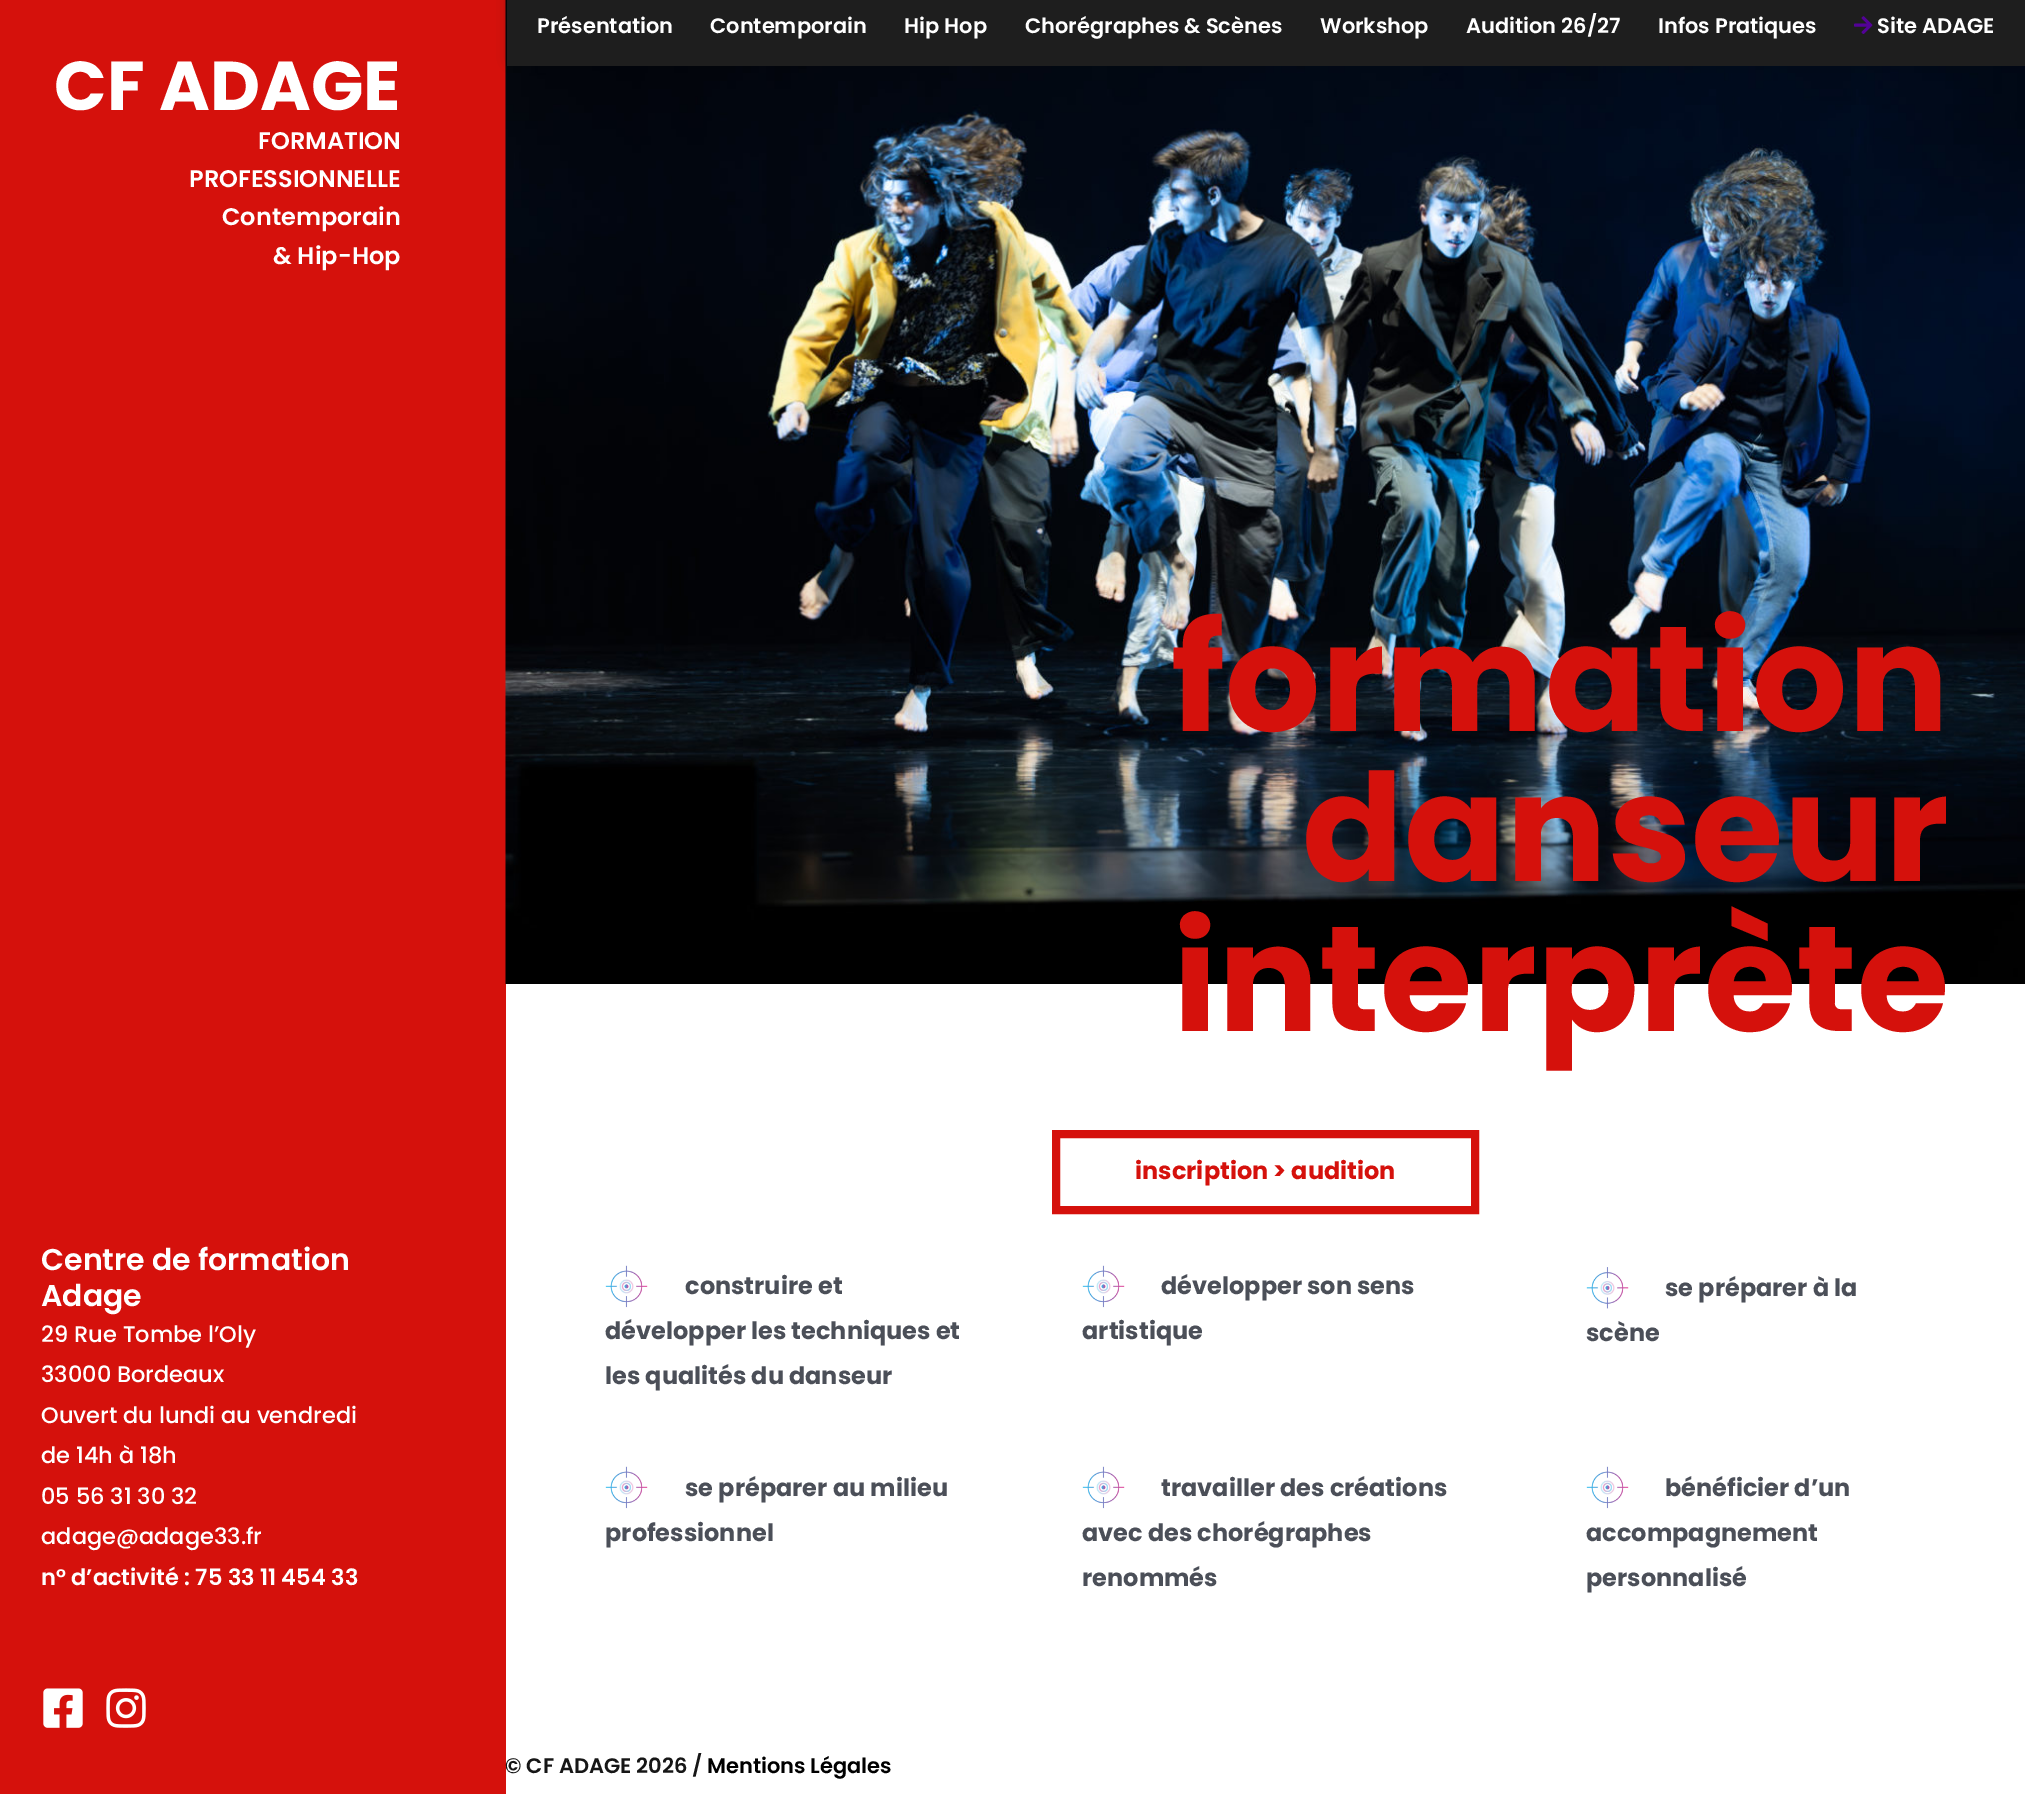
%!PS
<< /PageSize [2025 1794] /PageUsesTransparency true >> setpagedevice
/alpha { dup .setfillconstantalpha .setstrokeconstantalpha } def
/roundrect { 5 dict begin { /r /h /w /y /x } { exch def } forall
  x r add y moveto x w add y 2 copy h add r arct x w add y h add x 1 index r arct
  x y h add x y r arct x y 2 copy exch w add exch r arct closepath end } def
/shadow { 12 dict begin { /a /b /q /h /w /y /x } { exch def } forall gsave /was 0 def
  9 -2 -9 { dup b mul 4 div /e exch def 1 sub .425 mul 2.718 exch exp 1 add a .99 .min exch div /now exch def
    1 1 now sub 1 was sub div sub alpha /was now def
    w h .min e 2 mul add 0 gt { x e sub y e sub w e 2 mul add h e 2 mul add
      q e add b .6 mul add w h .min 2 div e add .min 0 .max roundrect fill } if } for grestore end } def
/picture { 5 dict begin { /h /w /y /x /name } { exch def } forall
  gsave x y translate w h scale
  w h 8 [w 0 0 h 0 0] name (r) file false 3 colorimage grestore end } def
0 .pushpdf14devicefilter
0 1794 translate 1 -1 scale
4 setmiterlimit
1 setgray
0 0 2025 1794 rectfill
0.835 0.067 0.047 setrgbcolor
0 0 506 1794 rectfill
/Poppins-Bold [69 0 0 -69 0 0] selectfont
1 setgray
54 110 moveto (CF ADAGE) show
/Poppins-SemiBold [24 0 0 -24 0 0] selectfont
258 149 moveto (FORMATION) show
189 187 moveto (PROFESSIONNELLE) show
222 225 moveto (Contemporain) show
273 264 moveto (& Hip-Hop) show
/Poppins-SemiBold [30 0 0 -30 0 0] selectfont
41 1270 moveto (Centre de formation) show
41 1306 moveto (Adage) show
/Poppins-Medium [22.5 0 0 -22.5 0 0] selectfont
41 1342 moveto (29 Rue Tombe l’Oly) show
41 1382 moveto (33000 Bordeaux) show
41 1423 moveto (Ouvert du lundi au vendredi) show
41 1463 moveto (de 14h à 18h) show
41 1504 moveto (05 56 31 30 32) show
41 1544 moveto (adage@adage33.fr) show
/Poppins-SemiBold [22.5 0 0 -22.5 0 0] selectfont
41 1585 moveto (n° d’activité : 75 33 11 454 33) show
(img1.rgb) 43 1688 40 40 picture
(img2.rgb) 106 1688 40 40 picture
(img3.rgb) 505 0 1520 984 picture
0 setgray
513 -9 1506 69 0 7.5 0.5 shadow
0.118 setgray
507 0 1518 66 rectfill
/Poppins-SemiBold [21 0 0 -21 0 0] selectfont
1 setgray
537 33 moveto (Présentation) show
710 33 moveto (Contemporain) show
904 33 moveto (Hip Hop) show
1025 33 moveto (Chorégraphes & Scènes) show
1320 33 moveto (Workshop) show
1466 33 moveto (Audition 26/27) show
1658 33 moveto (Infos Pratiques) show
(img4.rgb) 1854 16 19 18 picture
1877 33 moveto (Site ADAGE) show
/Poppins-Bold [150 0 0 -150 0 0] selectfont
0.835 0.067 0.047 setrgbcolor
1171 731 moveto 0.25 0 (formation) ashow
1302 881 moveto 0.25 0 (danseur) ashow
1173 1031 moveto 0.25 0 (interprète) ashow
8 setlinewidth
1056 1134 419 76 rectstroke
/Poppins-Bold [24 0 0 -24 0 0] selectfont
1135 1179 moveto (inscription > audition) show
(img5.rgb) 605 1265 43 43 picture
0.294 0.31 0.345 setrgbcolor
685 1294 moveto (construire et) show
605 1339 moveto (développer les techniques et) show
605 1384 moveto (les qualités du danseur) show
(img5.rgb) 1082 1265 43 43 picture
1161 1294 moveto (développer son sens) show
1082 1339 moveto (artistique) show
(img6.rgb) 1586 1267 43 42 picture
1665 1296 moveto (se préparer à la) show
1586 1341 moveto (scène) show
(img5.rgb) 605 1466 43 43 picture
685 1496 moveto (se préparer au milieu) show
605 1541 moveto (professionnel) show
(img5.rgb) 1082 1466 43 43 picture
1161 1496 moveto (travailler des créations) show
1082 1541 moveto (avec des chorégraphes) show
1082 1586 moveto (renommés) show
(img5.rgb) 1586 1466 43 43 picture
1665 1496 moveto (bénéficier d’un) show
1586 1541 moveto (accompagnement) show
1586 1586 moveto (personnalisé) show
/Poppins-SemiBold [21 0 0 -21 0 0] selectfont
0.086 setgray
505 1773 moveto (© CF ADAGE 2026 /) show
0 setgray
707 1773 moveto (Mentions Légales) show
.poppdf14devicefilter showpage
